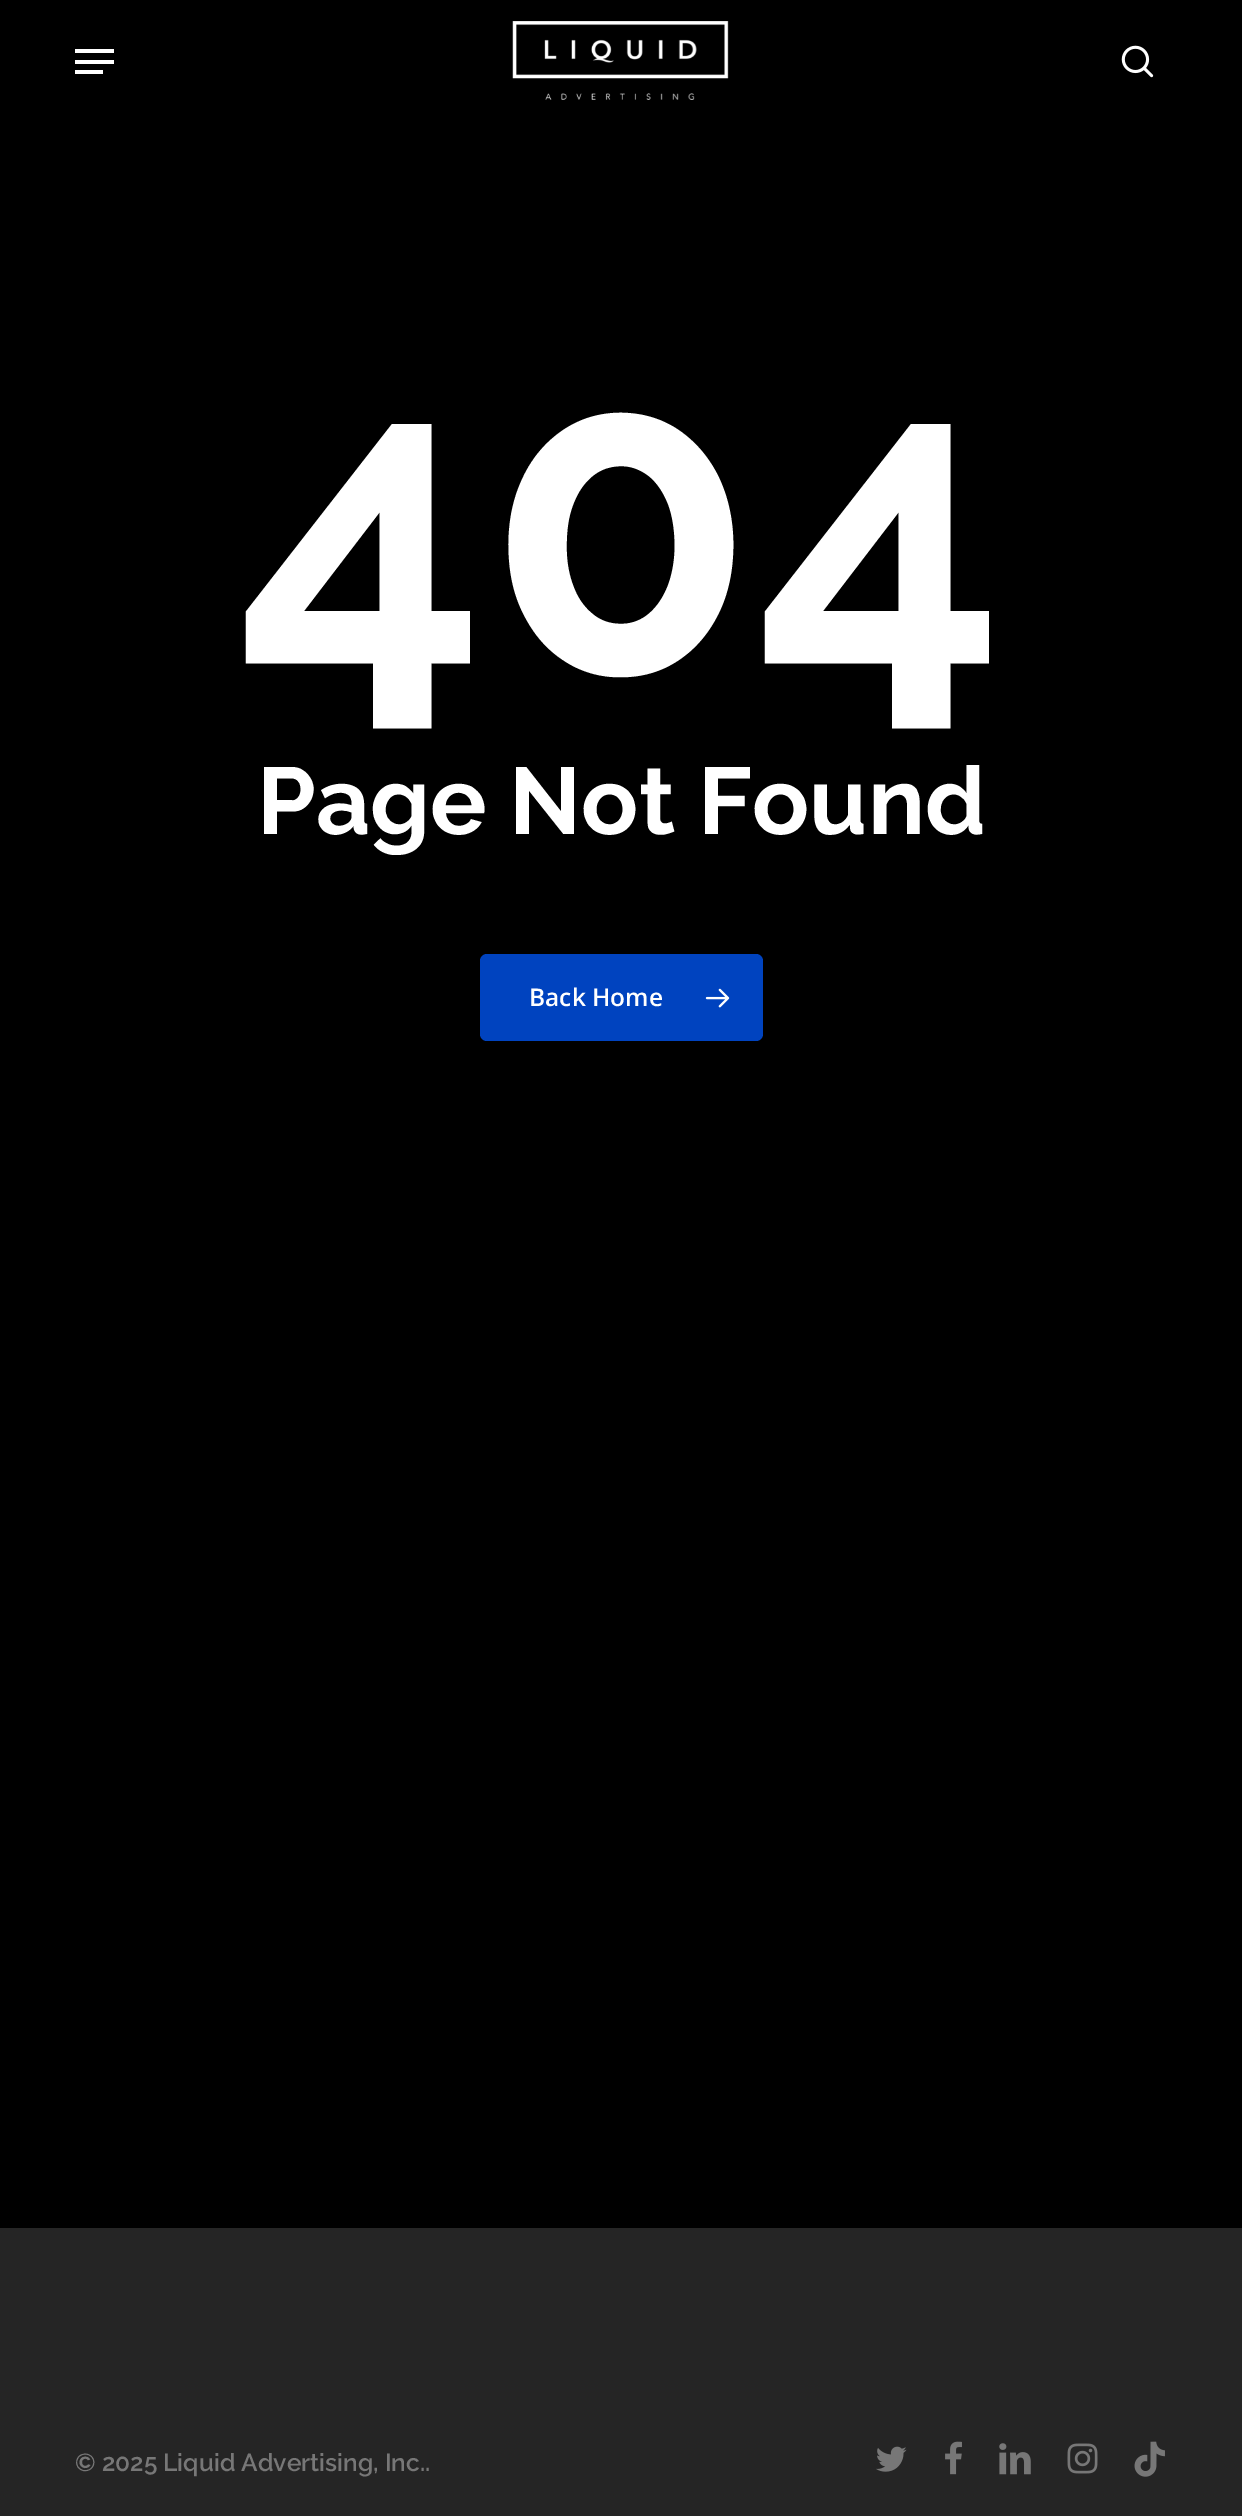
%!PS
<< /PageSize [1242 2516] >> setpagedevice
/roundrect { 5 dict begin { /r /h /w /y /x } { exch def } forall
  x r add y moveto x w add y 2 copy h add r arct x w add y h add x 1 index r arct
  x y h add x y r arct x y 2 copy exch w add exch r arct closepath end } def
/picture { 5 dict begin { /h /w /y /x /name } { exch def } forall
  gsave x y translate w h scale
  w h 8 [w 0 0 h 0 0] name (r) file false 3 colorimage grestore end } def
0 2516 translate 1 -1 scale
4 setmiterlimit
0 setgray
0 0 1242 2516 rectfill
(img1.rgb) 512 21 217 79 picture
1 setgray
75 49 39 4 rectfill
75 70 28 4 rectfill
75 60 39 4 rectfill
(img2.rgb) 1121 45 33 33 picture
/Raleway-Bold [438 0 0 -438 0 0] selectfont
237 673 moveto (404) show
/Raleway-Bold [94.5 0 0 -94.5 0 0] selectfont
257 834 moveto (Page Not Found) show
0 0.263 0.749 setrgbcolor
480 954 283 87 7 roundrect fill
/OpenSans-SemiBold [24.5 0 0 -24.5 0 0] selectfont
1 setgray
529 1006 moveto (Back Home) show
(img3.rgb) 705 988 25 20 picture
0.145 setgray
0 2228 1242 288 rectfill
/Raleway-SemiBold [24.5 0 0 -24.5 0 0] selectfont
0.467 setgray
75 2471 moveto (© 2025 Liquid Advertising, Inc..) show
(img4.rgb) 876 2446 31 26 picture
(img5.rgb) 945 2441 17 34 picture
(img6.rgb) 999 2443 32 32 picture
(img7.rgb) 1067 2443 31 31 picture
(img8.rgb) 1134 2441 31 36 picture
showpage
